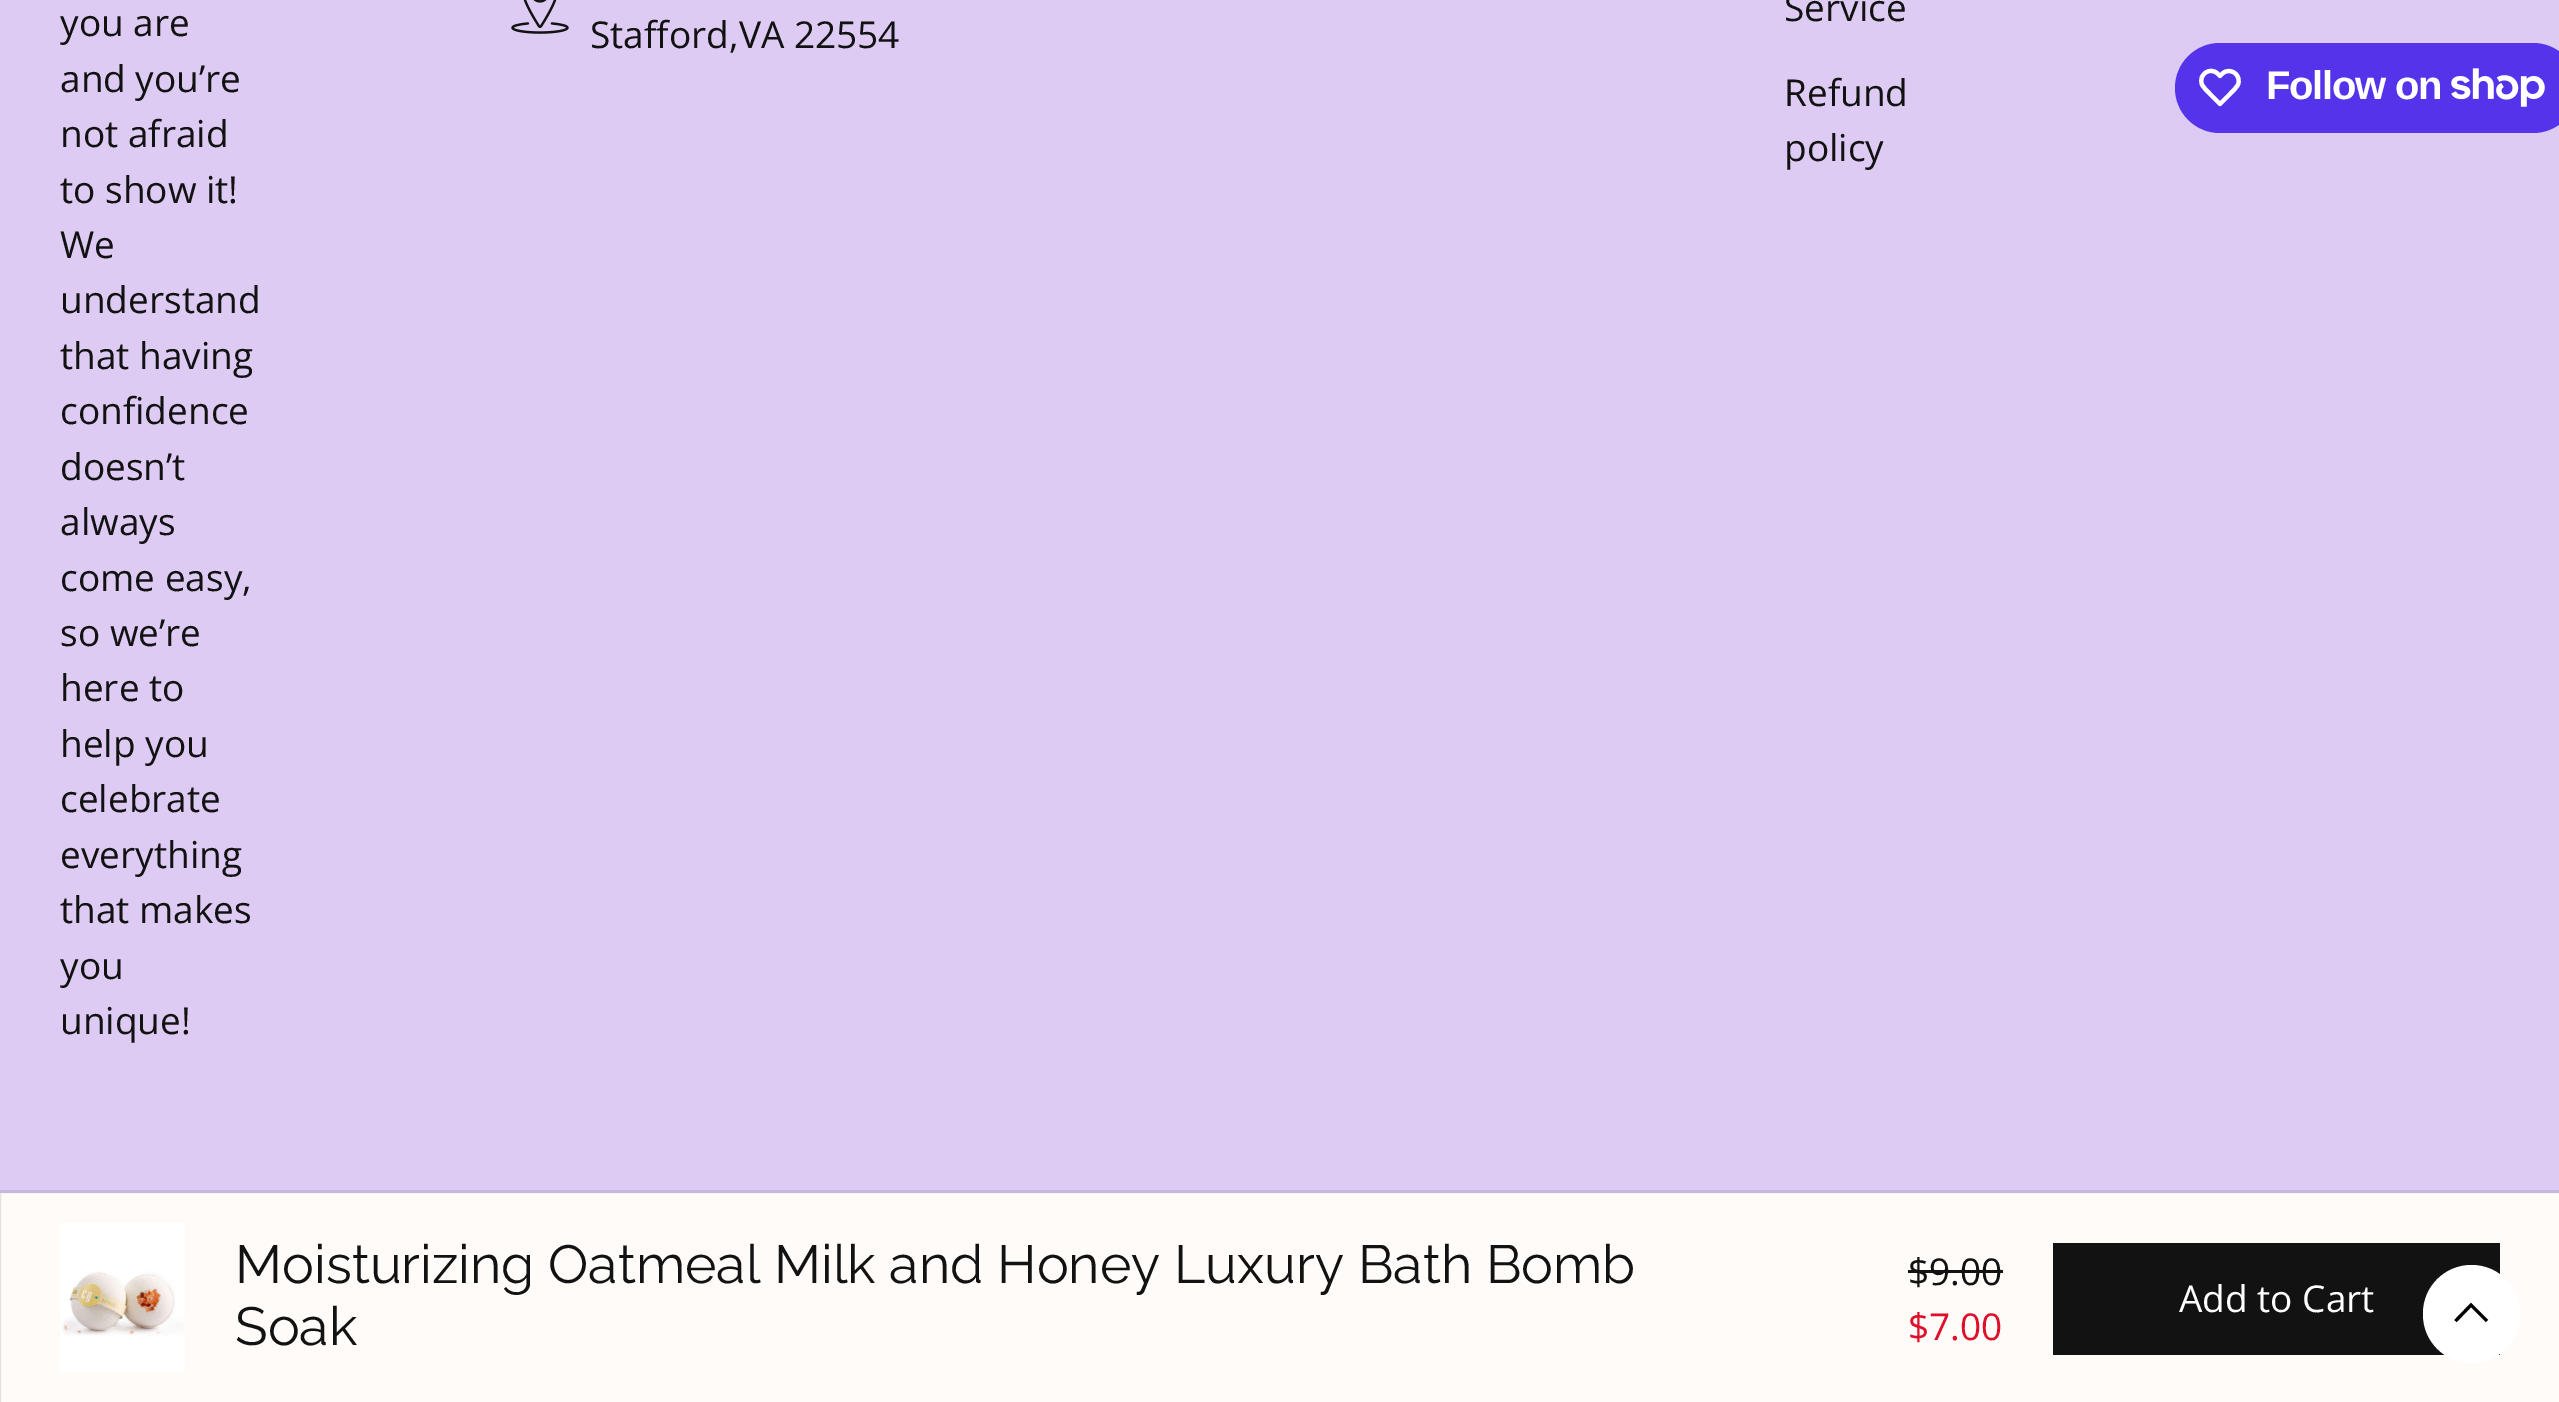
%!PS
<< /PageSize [2559 1402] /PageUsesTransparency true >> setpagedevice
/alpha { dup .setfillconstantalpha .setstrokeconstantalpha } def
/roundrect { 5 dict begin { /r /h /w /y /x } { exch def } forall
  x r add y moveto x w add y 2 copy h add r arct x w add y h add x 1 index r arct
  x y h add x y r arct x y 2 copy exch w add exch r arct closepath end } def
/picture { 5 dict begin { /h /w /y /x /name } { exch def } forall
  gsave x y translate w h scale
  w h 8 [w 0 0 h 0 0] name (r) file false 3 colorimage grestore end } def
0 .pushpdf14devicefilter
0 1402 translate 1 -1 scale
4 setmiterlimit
0.871 0.796 0.957 setrgbcolor
0 0 2559 1402 rectfill
/OpenSans-Regular [37 0 0 -37 0 0] selectfont
0.071 setgray
60 36 moveto (you are) show
60 92 moveto (and you’re) show
60 147 moveto (not afraid) show
60 203 moveto (to show it!) show
60 258 moveto (We) show
60 313 moveto (understand) show
60 369 moveto (that having) show
60 424 moveto (confidence) show
60 480 moveto (doesn’t) show
60 535 moveto (always) show
60 591 moveto (come easy,) show
60 646 moveto (so we’re) show
60 701 moveto (here to) show
60 757 moveto (help you) show
60 812 moveto (celebrate) show
60 868 moveto (everything) show
60 923 moveto (that makes) show
60 979 moveto (you) show
60 1034 moveto (unique!) show
(img1.rgb) 511 0 58 34 picture
590 48 moveto (Stafford,VA 22554) show
1784 21 moveto (Service) show
1784 106 moveto (Refund) show
1784 161 moveto (policy) show
0.329 0.2 0.922 setrgbcolor
2175 43 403 90 45 roundrect fill
1 setgray
4.2 setlinewidth
1 setlinejoin
newpath 2218 74 moveto 2220 76 lineto 2222 74 2223.5 72 2226 71.5 curveto 2234 69 2241 77 2238 84.5 curveto 2236.5 88 2233 90.5 2230.5 93.5 curveto 2220 104 lineto 2209.5 93.5 lineto 2207 90.5 2203.5 88 2202 84.5 curveto 2198 74.5 2210.5 66 2218 74 curveto closepath stroke
/LiberationSans-Bold [40 0 0 -40 0 0] selectfont
2266 99 moveto -1.25 0 (Follow on) ashow
(img2.rgb) 2451 68 94 39 picture
1 0.984 0.976 setrgbcolor
0 1193 2559 209 rectfill
(img3.rgb) 60 1223 125 149 picture
0.071 setgray
1908 1270 95 3 rectfill
0.1 alpha
0 setgray
3 setlinewidth
0 setlinejoin
-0.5 1191.5 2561 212 rectstroke
/Raleway-Regular [53.65 0 0 -53.65 0 0] selectfont
1 alpha
0.071 setgray
235 1283 moveto (Moisturizing Oatmeal Milk and Honey Luxury Bath Bomb) show
235 1345 moveto (Soak) show
/OpenSans-Regular [37 0 0 -37 0 0] selectfont
1908 1285 moveto ($9.00) show
0.871 0.059 0.169 setrgbcolor
1908 1340 moveto ($7.00) show
0.071 setgray
2053 1243 447 112 rectfill
1 setgray
2179 1312 moveto (Add to Cart) show
2423 1265 97 98 48.5 roundrect fill
0 setgray
3.1 setlinewidth
newpath 2487 1321 moveto 2471 1305 lineto 2455.5 1321 lineto stroke
.poppdf14devicefilter showpage
